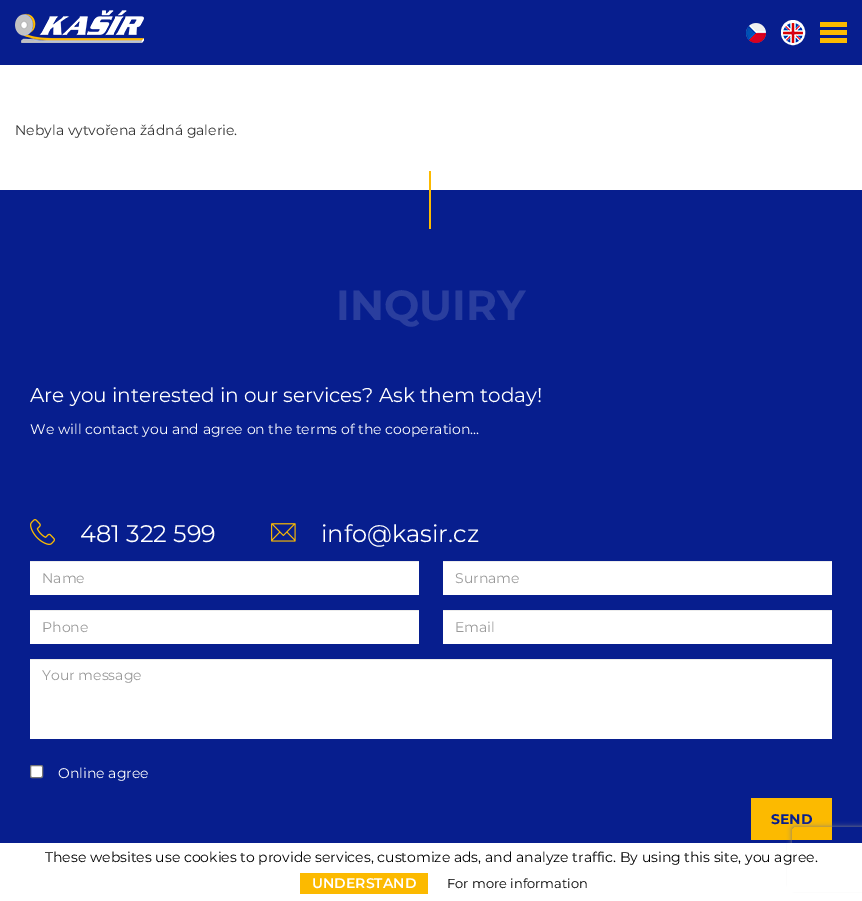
%!PS
<< /PageSize [862 901] /PageUsesTransparency true >> setpagedevice
/alpha { dup .setfillconstantalpha .setstrokeconstantalpha } def
/roundrect { 5 dict begin { /r /h /w /y /x } { exch def } forall
  x r add y moveto x w add y 2 copy h add r arct x w add y h add x 1 index r arct
  x y h add x y r arct x y 2 copy exch w add exch r arct closepath end } def
/shadow { 12 dict begin { /a /b /q /h /w /y /x } { exch def } forall gsave /was 0 def
  9 -2 -9 { dup b mul 4 div /e exch def 1 sub .425 mul 2.718 exch exp 1 add a .99 .min exch div /now exch def
    1 1 now sub 1 was sub div sub alpha /was now def
    w h .min e 2 mul add 0 gt { x e sub y e sub w e 2 mul add h e 2 mul add
      q e add b .6 mul add w h .min 2 div e add .min 0 .max roundrect fill } if } for grestore end } def
/picture { 5 dict begin { /h /w /y /x /name } { exch def } forall
  gsave x y translate w h scale
  w h 8 [w 0 0 h 0 0] name (r) file false 3 colorimage grestore end } def
0 .pushpdf14devicefilter
0 901 translate 1 -1 scale
4 setmiterlimit
1 setgray
0 0 862 901 rectfill
0.027 0.118 0.557 setrgbcolor
0 0 862 65 rectfill
(img1.rgb) 15 10 129 33 picture
(img2.rgb) 746 23 20 20 picture
1 setgray
782 21 22 23 11 roundrect gsave fill grestore
2 setlinewidth
stroke
(img3.rgb) 783 23 20 20 picture
0.988 0.729 0 setrgbcolor
820 22 27 5 rectfill
820 30 27 5 rectfill
820 38 27 5 rectfill
/Montserrat-Regular [14 0 0 -14 0 0] selectfont
0.2 setgray
15 135 moveto (Nebyla vytvořena žádná galerie.) show
0.027 0.118 0.557 setrgbcolor
0 190 862 653 rectfill
0.988 0.729 0 setrgbcolor
429 171 2 58 rectfill
/Montserrat-Bold [42 0 0 -42 0 0] selectfont
0.165 0.243 0.62 setrgbcolor
336 320 moveto (INQUIRY) show
/Montserrat-Regular [20 0 0 -20 0 0] selectfont
1 setgray
30 402 moveto (Are you interested in our services? Ask them today!) show
/Montserrat-Regular [14 0 0 -14 0 0] selectfont
30 434 moveto (We will contact you and agree on the terms of the cooperation...) show
(img4.rgb) 30 519 25 26 picture
/Montserrat-Regular [24 0 0 -24 0 0] selectfont
80 542 moveto (481 322 599) show
(img5.rgb) 271 523 25 19 picture
321 542 moveto (info@kasir.cz) show
30 562 389 33 rectfill
0.925 setgray
30 561 389 1 rectfill
/Montserrat-Regular [14 0 0 -14 0 0] selectfont
0.6 setgray
42 583 moveto (Name) show
1 setgray
443 562 389 33 rectfill
0.925 setgray
443 561 389 1 rectfill
0.6 setgray
455 583 moveto (Surname) show
1 setgray
30 611 389 33 rectfill
0.925 setgray
30 610 389 1 rectfill
0.6 setgray
42 632 moveto (Phone) show
1 setgray
443 611 389 33 rectfill
0.925 setgray
443 610 389 1 rectfill
0.6 setgray
455 632 moveto (Email) show
1 setgray
30 660 802 79 rectfill
0.925 setgray
30 659 802 1 rectfill
0.6 setgray
42 680 moveto (Your message) show
1 setgray
30.5 765.5 12 12 1.5 roundrect gsave fill grestore
0.463 setgray
1 setlinewidth
stroke
1 setgray
58 778 moveto (Online agree) show
0.988 0.729 0 setrgbcolor
751 798 81 42 rectfill
/Montserrat-Bold [14 0 0 -14 0 0] selectfont
0.027 0.118 0.557 setrgbcolor
771 824 moveto (SEND) show
gsave
newpath 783 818 moveto 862 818 lineto 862 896 lineto 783 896 lineto closepath 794 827 moveto 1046 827 lineto 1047 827 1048 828 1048 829 curveto 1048 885 lineto 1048 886 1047 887 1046 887 curveto 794 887 lineto 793 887 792 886 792 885 curveto 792 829 lineto 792 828 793 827 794 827 curveto closepath eoclip newpath
0.502 setgray
792 827 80 60 2 2.5 1 shadow
grestore
1 setgray
787 843 75 49 rectfill
/Montserrat-Regular [14 0 0 -14 0 0] selectfont
0 setgray
45 862 moveto (These websites use cookies to provide services, customize ads, and analyze traffic. By using this site, you agree.) show
0.988 0.729 0 setrgbcolor
300 873 128 21 rectfill
/Montserrat-SemiBold [14 0 0 -14 0 0] selectfont
1 setgray
312 888 moveto (UNDERSTAND) show
/Montserrat-Regular [13 0 0 -13 0 0] selectfont
0 setgray
447 888 moveto (For more information) show
.poppdf14devicefilter showpage
